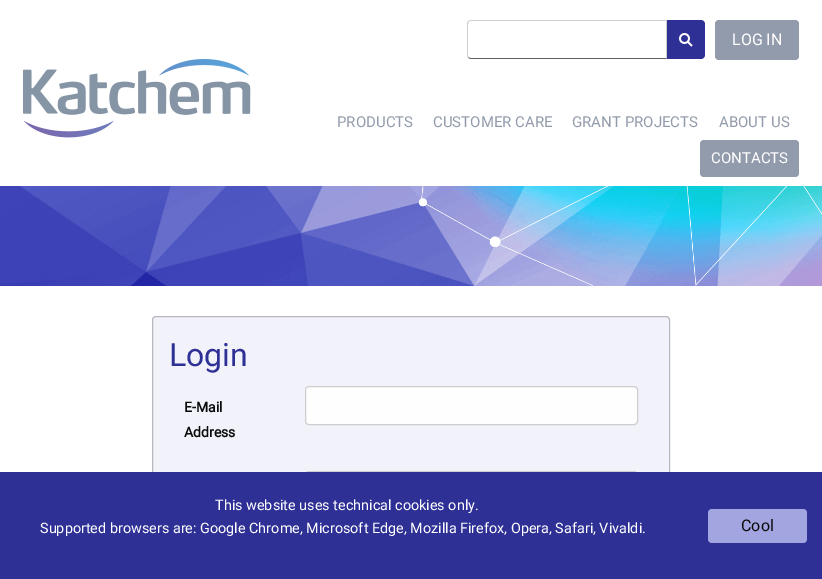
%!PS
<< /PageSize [822 579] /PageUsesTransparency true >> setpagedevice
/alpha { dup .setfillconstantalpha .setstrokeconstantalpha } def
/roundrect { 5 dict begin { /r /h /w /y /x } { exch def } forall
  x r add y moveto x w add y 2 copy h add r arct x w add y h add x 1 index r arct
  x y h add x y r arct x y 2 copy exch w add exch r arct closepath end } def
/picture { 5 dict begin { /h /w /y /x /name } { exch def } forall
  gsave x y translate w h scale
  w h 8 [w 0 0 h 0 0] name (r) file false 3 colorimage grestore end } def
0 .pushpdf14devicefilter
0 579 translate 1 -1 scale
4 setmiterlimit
1 setgray
0 0 822 579 rectfill
(img1.rgb) 23 59 228 79 picture
0.808 setgray
newpath 471 20 moveto 468 21 lineto 469 22 lineto 470 21 lineto 666 21 lineto 667 20 lineto closepath fill
newpath 667 20 moveto 666 21 lineto 666 58 lineto 667 59 lineto closepath fill
0.376 setgray
newpath 667 59 moveto 666 58 lineto 470 58 lineto 469 57 lineto 468 58 lineto 471 59 lineto closepath fill
0.808 setgray
newpath 467 24 moveto 467 55 lineto 467 56 467.5 57 468 58 curveto 469 57 lineto 468 57 468 56 468 55 curveto 468 24 lineto 468 23 468 22 469 22 curveto 468 21 lineto 467.5 22 467 23 467 24 curveto closepath fill
0.18 0.188 0.584 setrgbcolor
newpath 667 20 moveto 701 20 lineto 703 20 705 22 705 24 curveto 705 55 lineto 705 57 703 59 701 59 curveto 667 59 lineto closepath fill
(img2.rgb) 679 33 14 14 picture
0.573 0.608 0.675 setrgbcolor
715 20 84 40 4 roundrect fill
/Roboto-Regular [16 0 0 -16 0 0] selectfont
1 setgray
732 45 moveto (LOG IN) show
/Roboto-Regular [15 0 0 -15 0 0] selectfont
0.573 0.608 0.675 setrgbcolor
337 127 moveto (PRODUCTS) show
433 127 moveto (CUSTOMER CARE) show
572 127 moveto (GRANT PROJECTS) show
719 127 moveto (ABOUT US) show
700 140 99 37 4 roundrect fill
1 setgray
711 163 moveto (CONTACTS) show
(img3.rgb) 0 186 822 100 picture
0.945 0.949 0.98 setrgbcolor
152 316 518 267 4 roundrect fill
0.25 alpha
0.039 setgray
152.5 316.5 517 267 3.5 roundrect stroke
/Roboto-Regular [32 0 0 -32 0 0] selectfont
1 alpha
0.18 0.188 0.584 setrgbcolor
169 366 moveto (Login) show
/Roboto-Bold [14 0 0 -14 0 0] selectfont
0.039 setgray
184 412 moveto (E-Mail) show
184 437 moveto (Address) show
0.996 setgray
305.5 386.5 332 38 3.5 roundrect gsave fill grestore
0.808 setgray
stroke
305.5 471.5 332 38 3.5 roundrect stroke
0.18 0.188 0.584 setrgbcolor
0 472 822 107 rectfill
/Roboto-Regular [14.4 0 0 -14.4 0 0] selectfont
1 setgray
215 510 moveto (This website uses technical cookies only.) show
40 533 moveto (Supported browsers are: Google Chrome, Microsoft Edge, Mozilla Firefox, Opera, Safari, Vivaldi.) show
0.639 0.647 0.878 setrgbcolor
708 509 99 34 4 roundrect fill
/Roboto-Regular [16 0 0 -16 0 0] selectfont
0.039 setgray
741 531 moveto (Cool) show
.poppdf14devicefilter showpage
